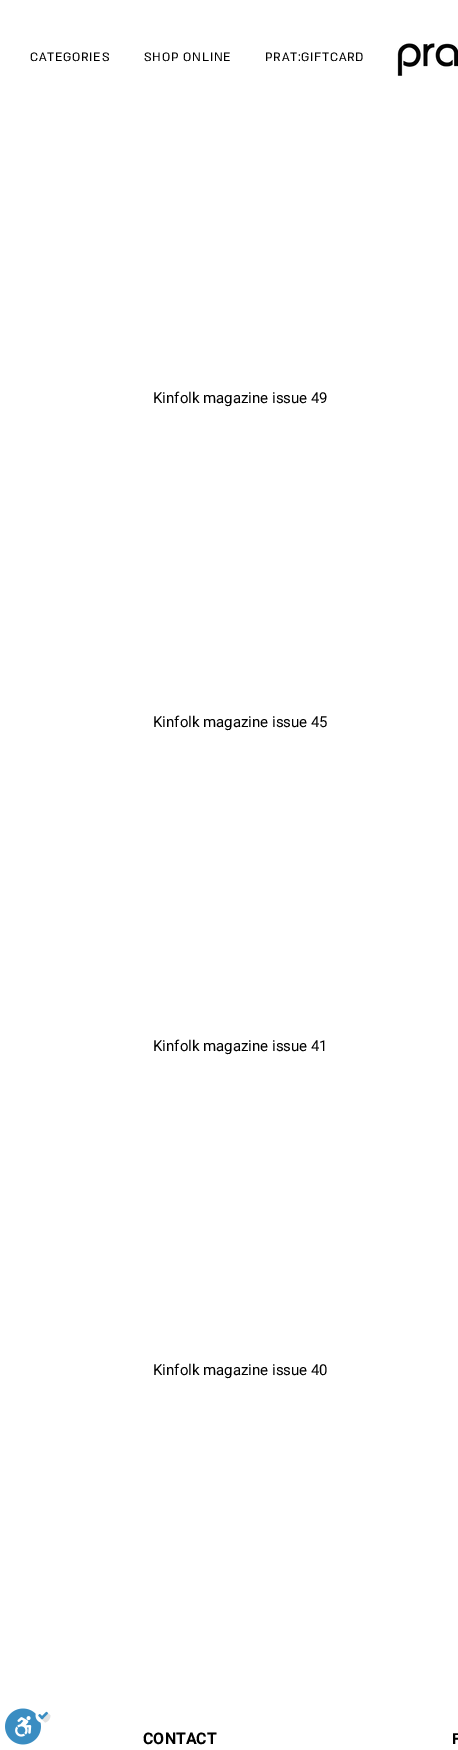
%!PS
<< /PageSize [458 1750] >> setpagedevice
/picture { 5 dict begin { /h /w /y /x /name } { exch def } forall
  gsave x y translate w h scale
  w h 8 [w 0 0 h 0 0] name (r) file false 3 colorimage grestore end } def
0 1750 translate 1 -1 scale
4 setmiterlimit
1 setgray
0 0 458 1750 rectfill
(img1.rgb) 5 1708 46 37 picture
/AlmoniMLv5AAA-Regular [14 0 0 -14 0 0] selectfont
0 setgray
30 61 moveto 0.75 0 (CATEGORIES) ashow
144 61 moveto 0.75 0 (SHOP ONLINE) ashow
265 61 moveto 0.75 0 (PRAT:GIFTCARD) ashow
(img2.rgb) 397 43 61 33 picture
/Roboto-Regular [15 0 0 -15 0 0] selectfont
153 403 moveto (Kinfolk magazine issue 49) show
153 727 moveto (Kinfolk magazine issue 45) show
153 1051 moveto (Kinfolk magazine issue 41) show
153 1375 moveto (Kinfolk magazine issue 40) show
/Roboto-Bold [16 0 0 -16 0 0] selectfont
143 1744 moveto (CONTACT) show
/Roboto-Bold [15 0 0 -15 0 0] selectfont
452 1744 moveto (F) show
showpage
